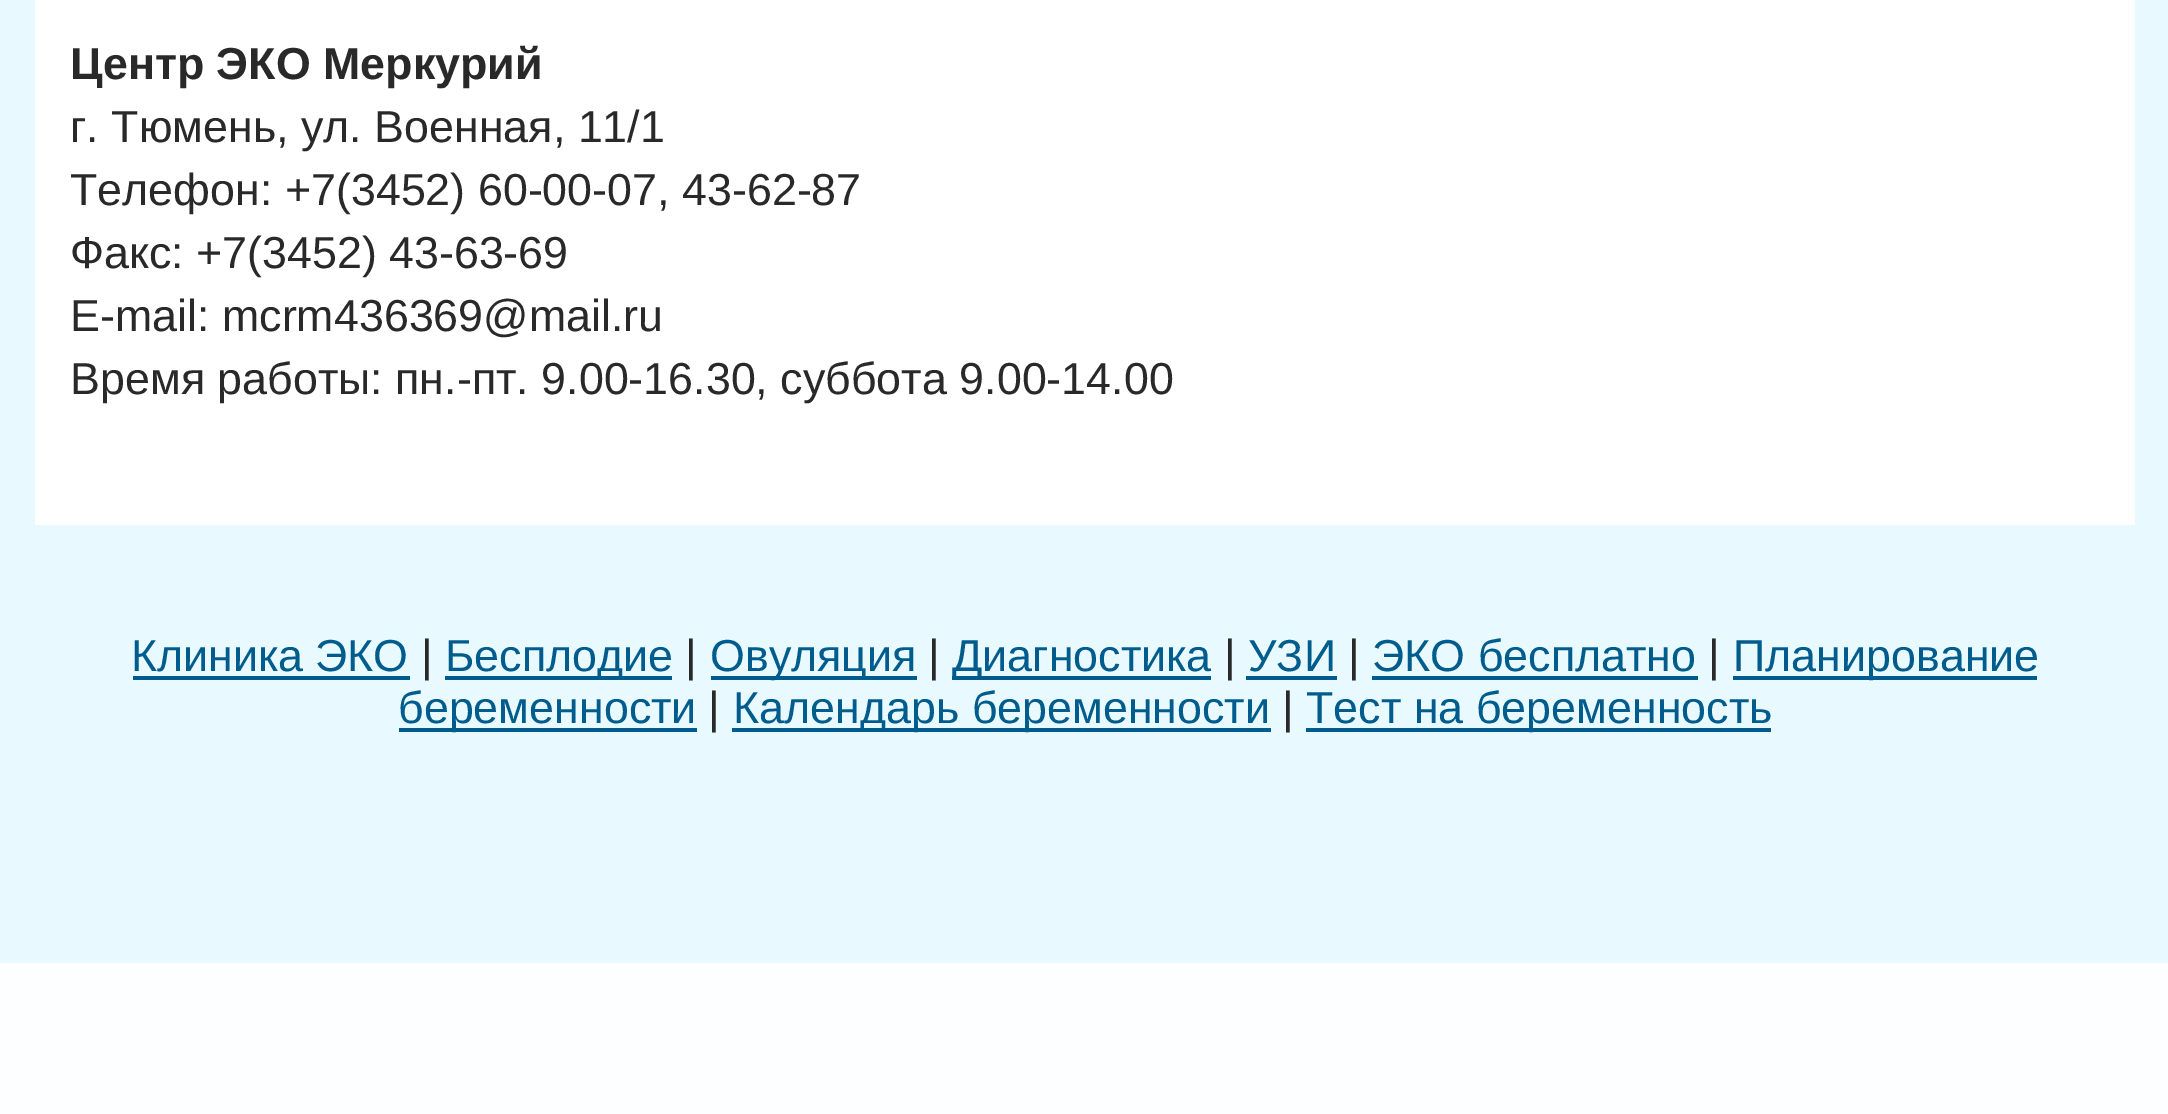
%!PS
<< /PageSize [2168 1114] >> setpagedevice
0 1114 translate 1 -1 scale
4 setmiterlimit
0.91 0.98 1 setrgbcolor
0 0 2168 1114 rectfill
1 setgray
35 0 2100 525 rectfill
/LiberationSans-Bold [44.8 0 0 -44.8 0 0] selectfont
0.161 setgray
70 79 moveto (Центр ЭКО Меркурий) show
/LiberationSans-Regular [44.8 0 0 -44.8 0 0] selectfont
70 142 moveto (г. Тюмень, ул. Военная, 11/1) show
70 205 moveto (Телефон: +7\(3452\) 60-00-07, 43-62-87) show
70 268 moveto (Факс: +7\(3452\) 43-63-69) show
70 331 moveto (E-mail: mcrm436369@mail.ru) show
70 394 moveto (Время работы: пн.-пт. 9.00-16.30, суббота 9.00-14.00) show
0 0.361 0.549 setrgbcolor
131 671 moveto (Клиника ЭКО) show
133 676 277 4 rectfill
0.161 setgray
421 671 moveto (|) show
0 0.361 0.549 setrgbcolor
445 676 227 4 rectfill
445 671 moveto (Бесплодие) show
0.161 setgray
685 671 moveto (|) show
0 0.361 0.549 setrgbcolor
711 676 206 4 rectfill
710 671 moveto (Овуляция) show
0.161 setgray
928 671 moveto (|) show
0 0.361 0.549 setrgbcolor
952 676 259 4 rectfill
952 671 moveto (Диагностика) show
0.161 setgray
1224 671 moveto (|) show
0 0.361 0.549 setrgbcolor
1248 671 moveto (УЗИ) show
1246 676 91 4 rectfill
0.161 setgray
1348 671 moveto (|) show
0 0.361 0.549 setrgbcolor
1372 671 moveto (ЭКО бесплатно) show
1372 676 326 4 rectfill
0.161 setgray
1708 671 moveto (|) show
0 0.361 0.549 setrgbcolor
1733 676 304 4 rectfill
1733 671 moveto (Планирование) show
399 728 298 4 rectfill
398 723 moveto (беременности) show
0.161 setgray
708 723 moveto (|) show
0 0.361 0.549 setrgbcolor
732 728 539 4 rectfill
733 723 moveto (Календарь беременности) show
0.161 setgray
1282 723 moveto (|) show
0 0.361 0.549 setrgbcolor
1306 728 465 4 rectfill
1306 723 moveto (Тест на беременность) show
0.992 0.996 1 setrgbcolor
0 963 2168 151 rectfill
showpage
